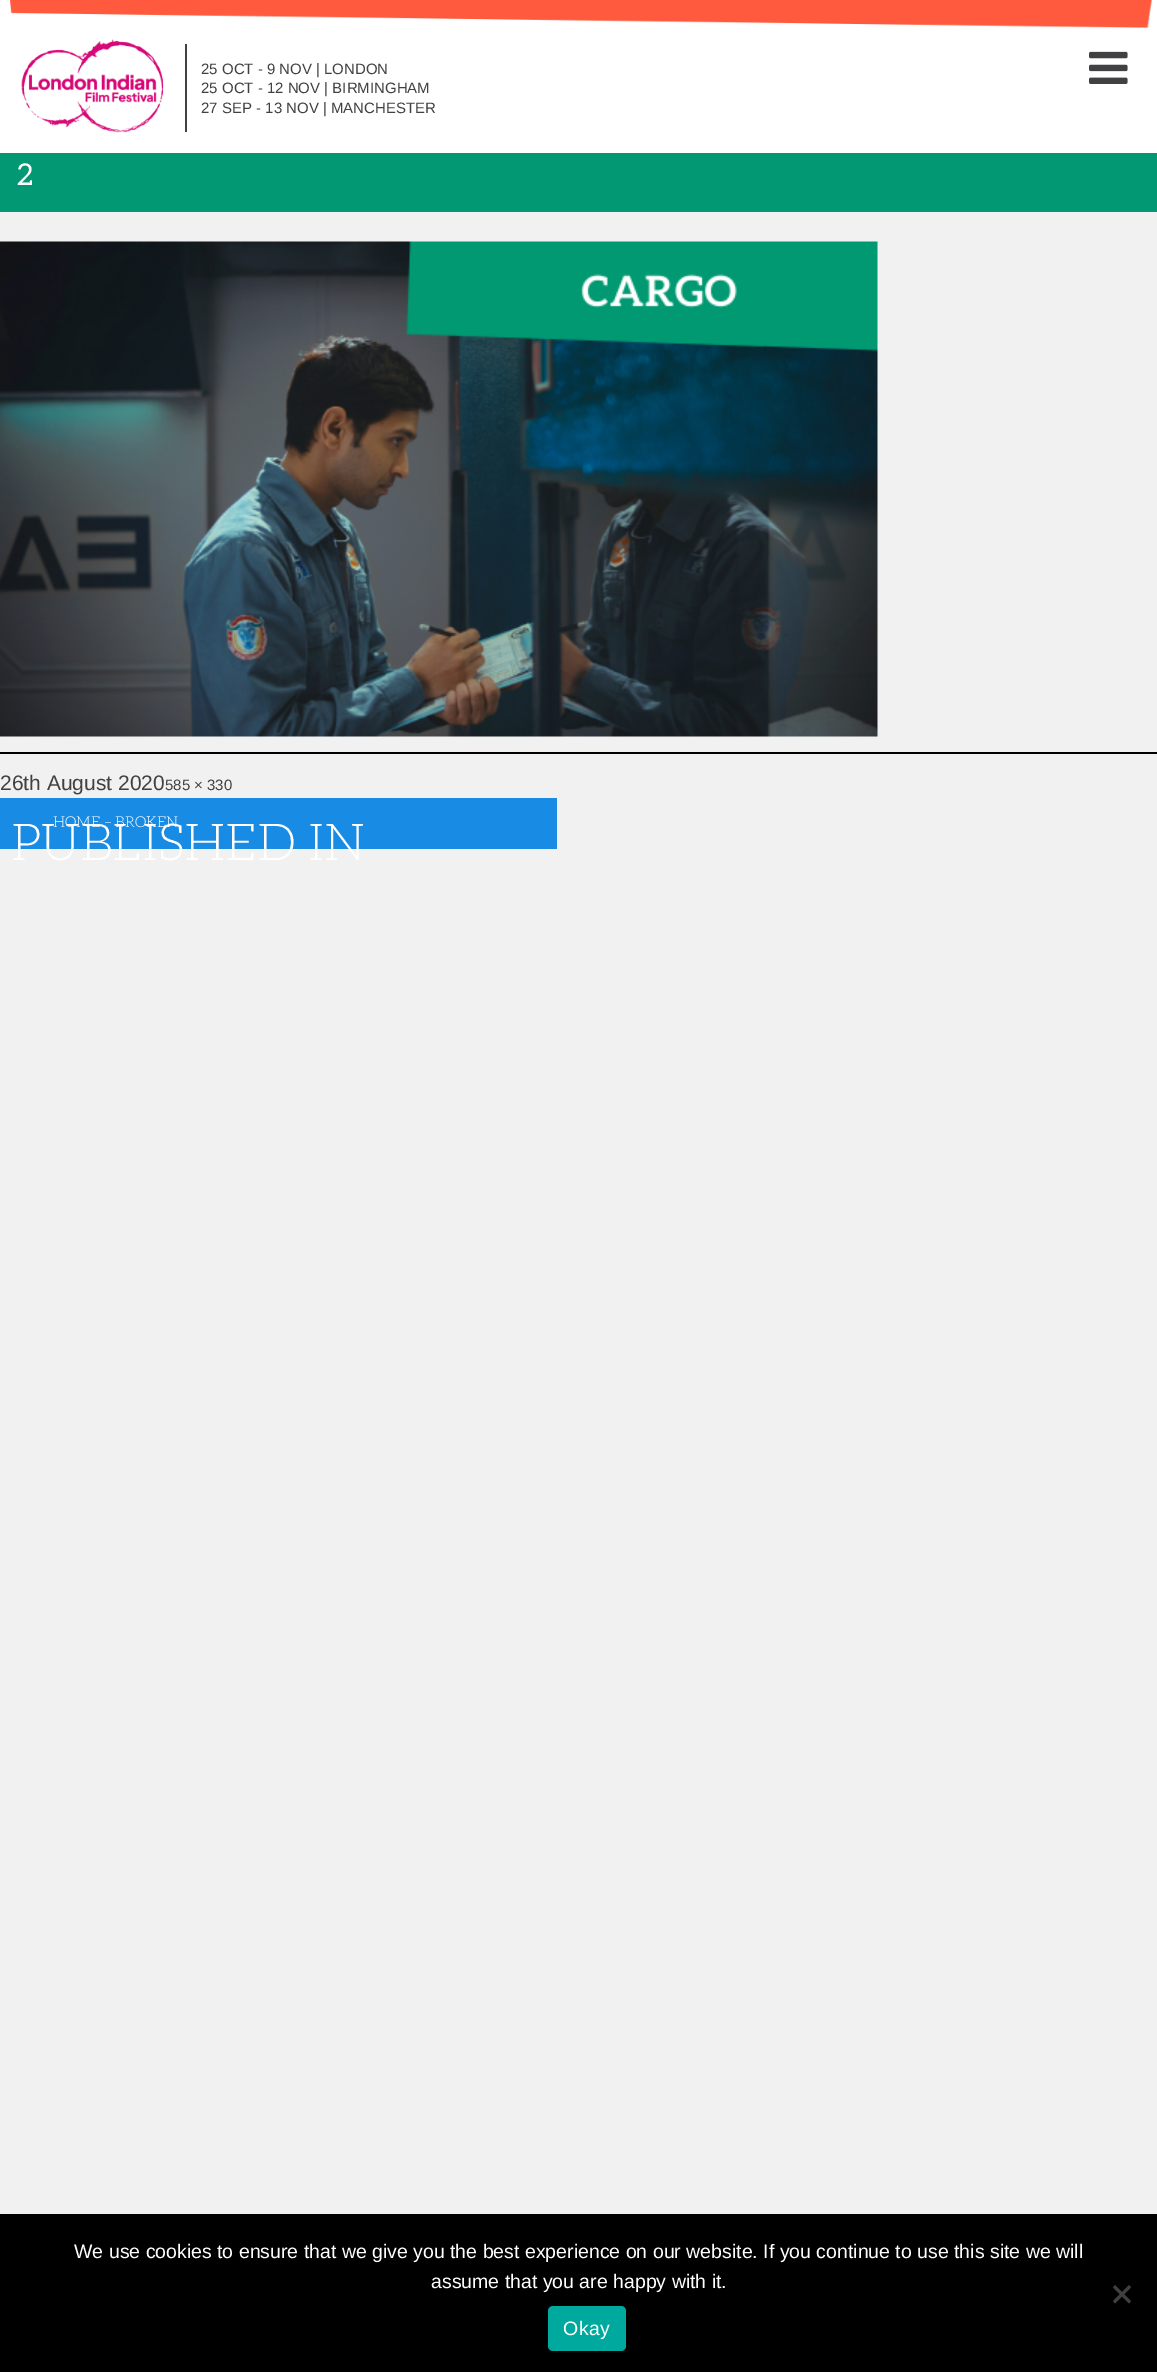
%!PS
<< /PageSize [1157 2372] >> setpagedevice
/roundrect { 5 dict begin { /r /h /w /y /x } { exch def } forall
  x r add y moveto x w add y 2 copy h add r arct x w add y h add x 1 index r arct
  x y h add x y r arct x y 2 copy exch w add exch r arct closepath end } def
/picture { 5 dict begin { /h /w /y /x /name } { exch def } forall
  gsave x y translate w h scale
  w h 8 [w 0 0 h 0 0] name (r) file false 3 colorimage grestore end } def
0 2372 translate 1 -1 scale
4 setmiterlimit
0.945 setgray
0 0 1157 2372 rectfill
1 setgray
0 0 1157 153 rectfill
(img1.rgb) 10 0 1143 28 picture
(img2.rgb) 21 39 143 94 picture
0.255 0.251 0.259 setrgbcolor
185 44 2 88 rectfill
/LiberationSans-Regular [15 0 0 -15 0 0] selectfont
201 74 moveto (25 OCT - 9 NOV | LONDON) show
201 93 moveto (25 OCT - 12 NOV | BIRMINGHAM) show
201 113 moveto (27 SEP - 13 NOV | MANCHESTER) show
(img3.rgb) 1089 51 39 33 picture
0.008 0.596 0.451 setrgbcolor
0 153 1157 59 rectfill
/Aleo-Regular [30 0 0 -30 0 0] selectfont
1 setgray
17 185 moveto (2) show
0 setgray
0 752 1157 2 rectfill
(img4.rgb) 0 241 878 496 picture
/LiberationSans-Regular [21 0 0 -21 0 0] selectfont
0.255 0.251 0.259 setrgbcolor
0 790 moveto (26th August 2020) show
/LiberationSans-Regular [15 0 0 -15 0 0] selectfont
165 790 moveto (585 × 330) show
0.094 0.545 0.898 setrgbcolor
0 798 557 51 rectfill
/Aleo-Light [15 0 0 -15 0 0] selectfont
1 setgray
53 827 moveto (HOME – BROKEN) show
/Aleo-Light [51 0 0 -51 0 0] selectfont
11 860 moveto (PUBLISHED IN) show
0 setgray
0 2214 1157 158 rectfill
/LiberationSans-Regular [19.5 0 0 -19.5 0 0] selectfont
1 setgray
74 2258 moveto (We use cookies to ensure that we give you the best experience on our website. If you continue to use this site we will) show
431 2288 moveto (assume that you are happy with it.) show
0.251 setgray
newpath 1129 2285 moveto 1131 2287.5 lineto 1115 2303.5 lineto 1113 2301 lineto closepath fill
newpath 1113 2287.5 moveto 1115 2285 lineto 1131 2301 lineto 1129 2303.5 lineto closepath fill
0 0.663 0.616 setrgbcolor
548 2306 78 45 5 roundrect fill
1 setgray
563 2335 moveto 0.5 0 (Okay) ashow
showpage
